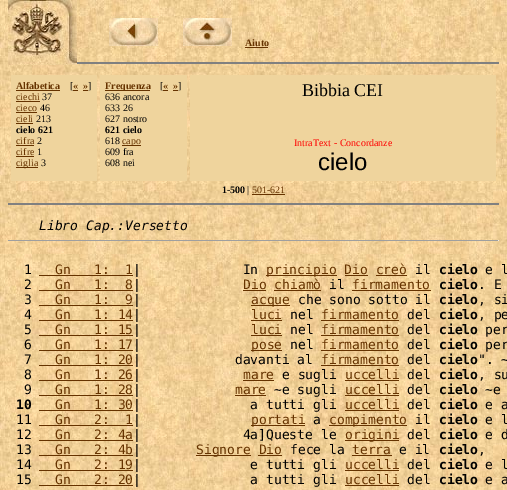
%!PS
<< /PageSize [507 490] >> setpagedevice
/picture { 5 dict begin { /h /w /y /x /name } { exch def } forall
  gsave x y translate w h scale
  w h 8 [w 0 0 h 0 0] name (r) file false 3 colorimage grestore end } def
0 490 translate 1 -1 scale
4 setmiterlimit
1 setgray
0 0 507 490 rectfill
(img1.rgb) 0 0 507 490 picture
(img2.rgb) 8 0 69 65 picture
(img3.rgb) 109 18 49 28 picture
(img4.rgb) 183 18 49 28 picture
/LiberationSerif-Bold [10 0 0 -10 0 0] selectfont
0.4 0.2 0 setrgbcolor
245 46 moveto (Aiuto) show
245 47 23 1 rectfill
0.502 setgray
77 62 422 2 rectfill
0.937 0.831 0.616 setrgbcolor
11 75 86 106 rectfill
0.4 0.2 0 setrgbcolor
16 89 moveto (Alfabetica) show
16 90 44 1 rectfill
/LiberationSerif-Regular [10 0 0 -10 0 0] selectfont
0 setgray
70 89 moveto ([) show
0.4 0.2 0 setrgbcolor
73 90 5 1 rectfill
/LiberationSerif-Bold [10 0 0 -10 0 0] selectfont
73 89 moveto («) show
83 89 moveto (») show
83 90 5 1 rectfill
/LiberationSerif-Regular [10 0 0 -10 0 0] selectfont
0 setgray
88 89 moveto (]) show
0.4 0.2 0 setrgbcolor
16 100 moveto (ciechi) show
16 101 24 1 rectfill
0 setgray
42 100 moveto (37) show
0.4 0.2 0 setrgbcolor
16 111 moveto (cieco) show
16 112 21 1 rectfill
0 setgray
40 111 moveto (46) show
0.4 0.2 0 setrgbcolor
16 122 moveto (cieli) show
16 123 17 1 rectfill
0 setgray
36 122 moveto (213) show
/LiberationSerif-Bold [10 0 0 -10 0 0] selectfont
16 133 moveto (cielo 621) show
/LiberationSerif-Regular [10 0 0 -10 0 0] selectfont
0.4 0.2 0 setrgbcolor
16 144 moveto (cifra) show
16 145 18 1 rectfill
0 setgray
37 144 moveto (2) show
0.4 0.2 0 setrgbcolor
16 155 moveto (cifre) show
16 156 18 1 rectfill
0 setgray
37 155 moveto (1) show
0.4 0.2 0 setrgbcolor
16 167 22 1 rectfill
16 166 moveto (ciglia) show
0 setgray
41 166 moveto (3) show
0.937 0.831 0.616 setrgbcolor
100 75 87 106 rectfill
0.4 0.2 0 setrgbcolor
105 90 45 1 rectfill
/LiberationSerif-Bold [10 0 0 -10 0 0] selectfont
105 89 moveto (Frequenza) show
/LiberationSerif-Regular [10 0 0 -10 0 0] selectfont
0 setgray
160 89 moveto ([) show
0.4 0.2 0 setrgbcolor
163 90 5 1 rectfill
/LiberationSerif-Bold [10 0 0 -10 0 0] selectfont
163 89 moveto («) show
173 89 moveto (») show
173 90 5 1 rectfill
/LiberationSerif-Regular [10 0 0 -10 0 0] selectfont
0 setgray
178 89 moveto (]) show
105 100 moveto (636 ancora) show
105 111 moveto (633 26) show
105 122 moveto (627 nostro) show
/LiberationSerif-Bold [10 0 0 -10 0 0] selectfont
105 133 moveto (621 cielo) show
/LiberationSerif-Regular [10 0 0 -10 0 0] selectfont
105 144 moveto (618) show
0.4 0.2 0 setrgbcolor
122 145 19 1 rectfill
122 144 moveto (capo) show
0 setgray
105 155 moveto (609 fra) show
105 166 moveto (608 nei) show
0.937 0.831 0.616 setrgbcolor
190 75 306 106 rectfill
/LiberationSerif-Regular [18 0 0 -18 0 0] selectfont
0 setgray
302 96 moveto (Bibbia CEI) show
/LiberationSerif-Regular [10 0 0 -10 0 0] selectfont
1 0 0 setrgbcolor
294 146 moveto (IntraText - Concordanze) show
/LiberationSans-Regular [24 0 0 -24 0 0] selectfont
0 setgray
318 170 moveto (cielo) show
/LiberationSerif-Bold [10 0 0 -10 0 0] selectfont
222 193 moveto (1-500) show
/LiberationSerif-Regular [10 0 0 -10 0 0] selectfont
247 193 moveto (|) show
0.4 0.2 0 setrgbcolor
252 193 moveto (501-621) show
252 194 33 1 rectfill
0.502 setgray
8 203 491 2 rectfill
/DejaVuSansMono-Italic [13 0 0 -13 0 0] selectfont
0 setgray
39 230 moveto (Libro Cap.:Versetto) show
0.624 setgray
8 240 491 1 rectfill
0.933 setgray
498 240 1 1 rectfill
/DejaVuSansMono-Regular [13 0 0 -13 0 0] selectfont
0 setgray
24 274 moveto (1) show
0.4 0.2 0 setrgbcolor
55 274 moveto (Gn   1:  1) show
39 275 94 1 rectfill
0 setgray
133 274 moveto (|             In) show
0.4 0.2 0 setrgbcolor
266 275 71 1 rectfill
266 274 moveto (principio Dio creò) show
0 setgray
415 274 moveto (il) show
/DejaVuSansMono-Bold [13 0 0 -13 0 0] selectfont
439 274 moveto (cielo) show
/DejaVuSansMono-Regular [13 0 0 -13 0 0] selectfont
485 274 moveto (e l) show
0.4 0.2 0 setrgbcolor
345 275 23 1 rectfill
376 275 31 1 rectfill
0 setgray
24 289 moveto (2) show
0.4 0.2 0 setrgbcolor
55 289 moveto (Gn   1:  8) show
39 290 94 1 rectfill
0 setgray
133 289 moveto (|) show
0.4 0.2 0 setrgbcolor
243 289 moveto (Dio chiamò) show
243 290 23 1 rectfill
0 setgray
329 289 moveto (il) show
0.4 0.2 0 setrgbcolor
352 289 moveto (firmamento) show
352 290 79 1 rectfill
/DejaVuSansMono-Bold [13 0 0 -13 0 0] selectfont
0 setgray
439 289 moveto (cielo) show
/DejaVuSansMono-Regular [13 0 0 -13 0 0] selectfont
478 289 moveto (. E) show
0.4 0.2 0 setrgbcolor
274 290 47 1 rectfill
0 setgray
24 304 moveto (3) show
0.4 0.2 0 setrgbcolor
55 304 moveto (Gn   1:  9) show
39 305 94 1 rectfill
0 setgray
133 304 moveto (|) show
0.4 0.2 0 setrgbcolor
251 305 39 1 rectfill
251 304 moveto (acque) show
0 setgray
298 304 moveto (che sono sotto il) show
/DejaVuSansMono-Bold [13 0 0 -13 0 0] selectfont
439 304 moveto (cielo) show
/DejaVuSansMono-Regular [13 0 0 -13 0 0] selectfont
478 304 moveto (, si) show
24 319 moveto (4) show
0.4 0.2 0 setrgbcolor
55 319 moveto (Gn   1: 14) show
39 320 94 1 rectfill
0 setgray
133 319 moveto (|) show
0.4 0.2 0 setrgbcolor
251 319 moveto (luci) show
251 320 31 1 rectfill
0 setgray
290 319 moveto (nel) show
0.4 0.2 0 setrgbcolor
321 319 moveto (firmamento) show
321 320 78 1 rectfill
0 setgray
407 319 moveto (del) show
/DejaVuSansMono-Bold [13 0 0 -13 0 0] selectfont
439 319 moveto (cielo) show
/DejaVuSansMono-Regular [13 0 0 -13 0 0] selectfont
478 319 moveto (, pe) show
24 334 moveto (5) show
0.4 0.2 0 setrgbcolor
55 334 moveto (Gn   1: 15) show
39 335 94 1 rectfill
0 setgray
133 334 moveto (|) show
0.4 0.2 0 setrgbcolor
251 334 moveto (luci) show
251 335 31 1 rectfill
0 setgray
290 334 moveto (nel) show
0.4 0.2 0 setrgbcolor
321 334 moveto (firmamento) show
321 335 78 1 rectfill
0 setgray
407 334 moveto (del) show
/DejaVuSansMono-Bold [13 0 0 -13 0 0] selectfont
439 334 moveto (cielo) show
/DejaVuSansMono-Regular [13 0 0 -13 0 0] selectfont
485 334 moveto (per) show
24 349 moveto (6) show
0.4 0.2 0 setrgbcolor
55 349 moveto (Gn   1: 17) show
39 350 94 1 rectfill
0 setgray
133 349 moveto (|) show
0.4 0.2 0 setrgbcolor
251 350 31 1 rectfill
251 349 moveto (pose) show
0 setgray
290 349 moveto (nel) show
0.4 0.2 0 setrgbcolor
321 349 moveto (firmamento) show
321 350 78 1 rectfill
0 setgray
407 349 moveto (del) show
/DejaVuSansMono-Bold [13 0 0 -13 0 0] selectfont
439 349 moveto (cielo) show
/DejaVuSansMono-Regular [13 0 0 -13 0 0] selectfont
485 349 moveto (per) show
24 364 moveto (7) show
0.4 0.2 0 setrgbcolor
55 364 moveto (Gn   1: 20) show
39 365 94 1 rectfill
0 setgray
133 364 moveto (|            davanti al) show
0.4 0.2 0 setrgbcolor
321 364 moveto (firmamento) show
321 365 78 1 rectfill
0 setgray
407 364 moveto (del) show
/DejaVuSansMono-Bold [13 0 0 -13 0 0] selectfont
439 364 moveto (cielo) show
/DejaVuSansMono-Regular [13 0 0 -13 0 0] selectfont
478 364 moveto (". ~) show
24 379 moveto (8) show
0.4 0.2 0 setrgbcolor
55 379 moveto (Gn   1: 26) show
39 380 94 1 rectfill
0 setgray
133 379 moveto (|) show
0.4 0.2 0 setrgbcolor
243 379 moveto (mare) show
243 380 31 1 rectfill
0 setgray
282 379 moveto (e sugli) show
0.4 0.2 0 setrgbcolor
345 379 moveto (uccelli) show
345 380 54 1 rectfill
0 setgray
407 379 moveto (del) show
/DejaVuSansMono-Bold [13 0 0 -13 0 0] selectfont
439 379 moveto (cielo) show
/DejaVuSansMono-Regular [13 0 0 -13 0 0] selectfont
478 379 moveto (, su) show
24 394 moveto (9) show
0.4 0.2 0 setrgbcolor
55 394 moveto (Gn   1: 28) show
39 395 94 1 rectfill
0 setgray
133 394 moveto (|) show
0.4 0.2 0 setrgbcolor
235 394 moveto (mare) show
235 395 31 1 rectfill
0 setgray
274 394 moveto (~e sugli) show
0.4 0.2 0 setrgbcolor
345 394 moveto (uccelli) show
345 395 54 1 rectfill
0 setgray
407 394 moveto (del) show
/DejaVuSansMono-Bold [13 0 0 -13 0 0] selectfont
439 394 moveto (cielo) show
/DejaVuSansMono-Regular [13 0 0 -13 0 0] selectfont
485 394 moveto (~e) show
/DejaVuSansMono-Bold [13 0 0 -13 0 0] selectfont
16 409 moveto (10) show
/DejaVuSansMono-Regular [13 0 0 -13 0 0] selectfont
0.4 0.2 0 setrgbcolor
55 409 moveto (Gn   1: 30) show
39 410 94 1 rectfill
0 setgray
133 409 moveto (|              a tutti gli) show
0.4 0.2 0 setrgbcolor
345 409 moveto (uccelli) show
345 410 54 1 rectfill
0 setgray
407 409 moveto (del) show
/DejaVuSansMono-Bold [13 0 0 -13 0 0] selectfont
439 409 moveto (cielo) show
/DejaVuSansMono-Regular [13 0 0 -13 0 0] selectfont
485 409 moveto (e a) show
16 424 moveto (11) show
0.4 0.2 0 setrgbcolor
55 424 moveto (Gn   2:  1) show
39 425 94 1 rectfill
0 setgray
133 424 moveto (|) show
0.4 0.2 0 setrgbcolor
251 425 54 1 rectfill
251 424 moveto (portati) show
0 setgray
313 424 moveto (a) show
0.4 0.2 0 setrgbcolor
329 425 78 1 rectfill
329 424 moveto (compimento) show
0 setgray
415 424 moveto (il) show
/DejaVuSansMono-Bold [13 0 0 -13 0 0] selectfont
439 424 moveto (cielo) show
/DejaVuSansMono-Regular [13 0 0 -13 0 0] selectfont
485 424 moveto (e l) show
16 439 moveto (12) show
0.4 0.2 0 setrgbcolor
55 439 moveto (Gn   2: 4a) show
39 440 94 1 rectfill
0 setgray
133 439 moveto (|             4a]Queste le) show
0.4 0.2 0 setrgbcolor
345 440 54 1 rectfill
345 439 moveto (origini) show
0 setgray
407 439 moveto (del) show
/DejaVuSansMono-Bold [13 0 0 -13 0 0] selectfont
439 439 moveto (cielo) show
/DejaVuSansMono-Regular [13 0 0 -13 0 0] selectfont
485 439 moveto (e d) show
16 454 moveto (13) show
0.4 0.2 0 setrgbcolor
55 454 moveto (Gn   2: 4b) show
39 455 94 1 rectfill
0 setgray
133 454 moveto (|) show
0.4 0.2 0 setrgbcolor
196 455 55 1 rectfill
196 454 moveto (Signore Dio) show
0 setgray
290 454 moveto (fece la) show
0.4 0.2 0 setrgbcolor
352 454 moveto (terra) show
352 455 40 1 rectfill
0 setgray
399 454 moveto (e il) show
/DejaVuSansMono-Bold [13 0 0 -13 0 0] selectfont
439 454 moveto (cielo) show
/DejaVuSansMono-Regular [13 0 0 -13 0 0] selectfont
478 454 moveto (,) show
0.4 0.2 0 setrgbcolor
258 455 24 1 rectfill
0 setgray
16 469 moveto (14) show
0.4 0.2 0 setrgbcolor
55 469 moveto (Gn   2: 19) show
39 470 94 1 rectfill
0 setgray
133 469 moveto (|              e tutti gli) show
0.4 0.2 0 setrgbcolor
345 469 moveto (uccelli) show
345 470 54 1 rectfill
0 setgray
407 469 moveto (del) show
/DejaVuSansMono-Bold [13 0 0 -13 0 0] selectfont
439 469 moveto (cielo) show
/DejaVuSansMono-Regular [13 0 0 -13 0 0] selectfont
485 469 moveto (e l) show
16 484 moveto (15) show
0.4 0.2 0 setrgbcolor
55 484 moveto (Gn   2: 20) show
39 485 94 1 rectfill
0 setgray
133 484 moveto (|              a tutti gli) show
0.4 0.2 0 setrgbcolor
345 484 moveto (uccelli) show
345 485 54 1 rectfill
0 setgray
407 484 moveto (del) show
/DejaVuSansMono-Bold [13 0 0 -13 0 0] selectfont
439 484 moveto (cielo) show
/DejaVuSansMono-Regular [13 0 0 -13 0 0] selectfont
485 484 moveto (e a) show
showpage
